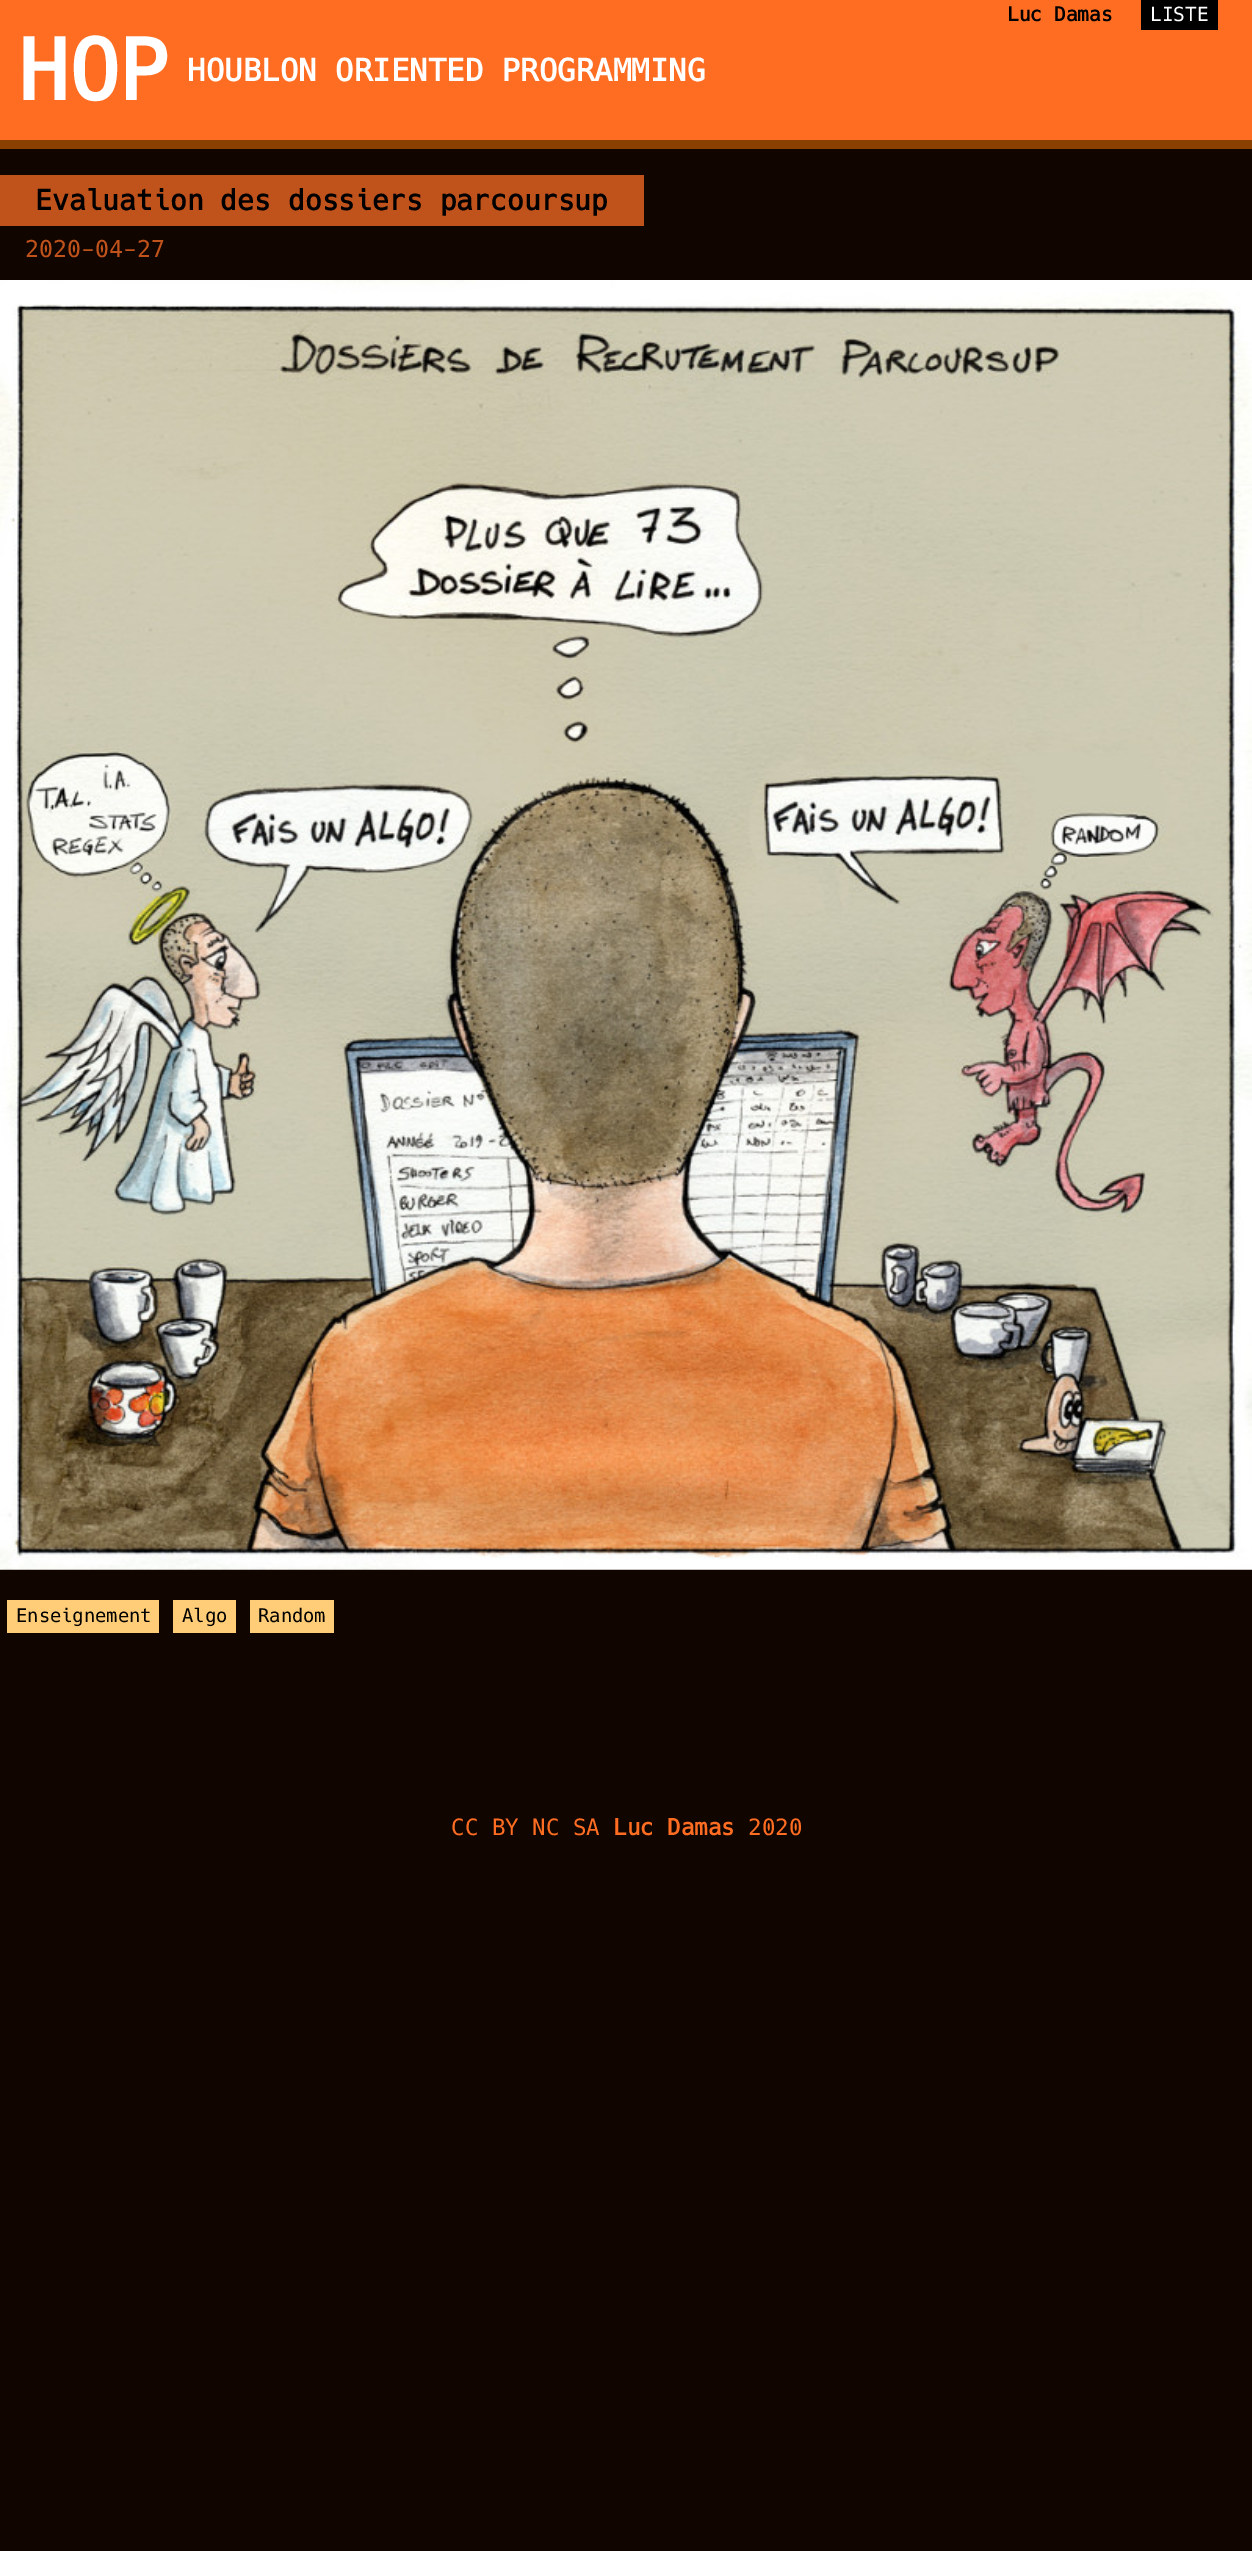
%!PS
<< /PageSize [1252 2551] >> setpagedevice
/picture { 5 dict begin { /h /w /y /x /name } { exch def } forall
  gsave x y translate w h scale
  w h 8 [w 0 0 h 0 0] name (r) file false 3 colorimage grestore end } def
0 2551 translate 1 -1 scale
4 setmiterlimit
0.067 0.02 0 setrgbcolor
0 0 1252 2551 rectfill
1 0.427 0.137 setrgbcolor
0 0 1252 140 rectfill
0.537 0.251 0 setrgbcolor
0 140 1252 9 rectfill
/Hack-Bold [19.5 0 0 -19.5 0 0] selectfont
0 setgray
1007 21 moveto (Luc Damas) show
1141 0 77 30 rectfill
/Hack-Regular [19.5 0 0 -19.5 0 0] selectfont
1 setgray
1150 21 moveto (LISTE) show
/Hack-Bold [84 0 0 -84 0 0] selectfont
18 100 moveto (HOP) show
/Hack-Bold [30.75 0 0 -30.75 0 0] selectfont
187 81 moveto (HOUBLON ORIENTED PROGRAMMING) show
0.753 0.322 0.106 setrgbcolor
0 175 644 51 rectfill
/Hack-Bold [28 0 0 -28 0 0] selectfont
0 setgray
35 210 moveto (Evaluation des dossiers parcoursup) show
/Hack-Regular [23.25 0 0 -23.25 0 0] selectfont
0.753 0.322 0.106 setrgbcolor
25 257 moveto (2020-04-27) show
(img1.rgb) 0 280 1252 1290 picture
1 0.8 0.467 setrgbcolor
7 1600 152 33 rectfill
/Hack-Regular [18.75 0 0 -18.75 0 0] selectfont
0 setgray
16 1622 moveto (Enseignement) show
1 0.8 0.467 setrgbcolor
173 1600 63 33 rectfill
0 setgray
182 1622 moveto (Algo) show
1 0.8 0.467 setrgbcolor
250 1600 84 33 rectfill
0 setgray
258 1622 moveto (Random) show
/Hack-Regular [22.5 0 0 -22.5 0 0] selectfont
1 0.427 0.137 setrgbcolor
451 1835 moveto (CC BY NC SA) show
/Hack-Bold [22.5 0 0 -22.5 0 0] selectfont
613 1835 moveto (Luc Damas) show
/Hack-Regular [22.5 0 0 -22.5 0 0] selectfont
748 1835 moveto (2020) show
showpage
